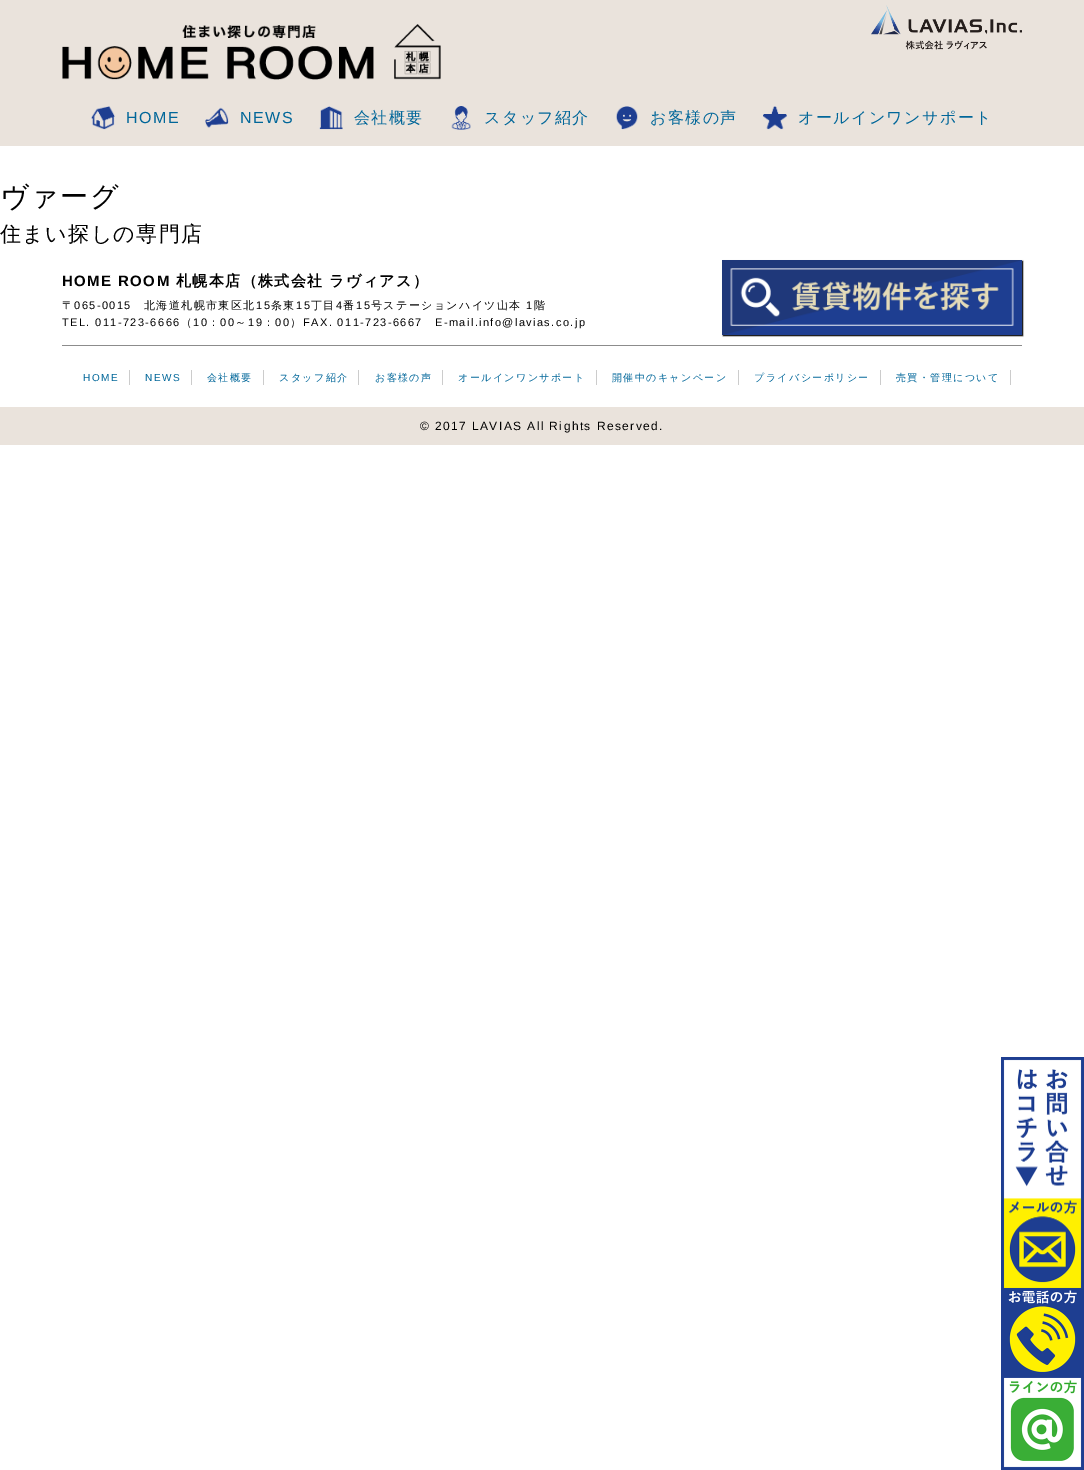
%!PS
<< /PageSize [1084 1470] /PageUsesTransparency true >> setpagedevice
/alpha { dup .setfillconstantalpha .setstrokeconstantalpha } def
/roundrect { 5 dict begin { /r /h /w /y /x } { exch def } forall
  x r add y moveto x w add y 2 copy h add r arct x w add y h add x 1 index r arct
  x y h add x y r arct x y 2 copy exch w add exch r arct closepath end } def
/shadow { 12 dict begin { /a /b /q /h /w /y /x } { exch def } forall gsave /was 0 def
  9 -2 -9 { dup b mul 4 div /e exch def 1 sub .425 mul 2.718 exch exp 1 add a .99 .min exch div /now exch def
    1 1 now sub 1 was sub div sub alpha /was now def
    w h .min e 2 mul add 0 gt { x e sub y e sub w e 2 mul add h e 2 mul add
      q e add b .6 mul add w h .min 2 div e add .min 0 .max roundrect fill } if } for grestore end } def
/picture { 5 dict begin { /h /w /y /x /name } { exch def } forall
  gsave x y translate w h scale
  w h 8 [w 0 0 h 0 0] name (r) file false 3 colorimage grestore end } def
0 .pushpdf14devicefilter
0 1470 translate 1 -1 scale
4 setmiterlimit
1 setgray
0 0 1084 1470 rectfill
0.918 0.89 0.863 setrgbcolor
0 0 1084 146 rectfill
(img1.rgb) 62 24 379 56 picture
(img2.rgb) 871 5 151 45 picture
(img3.rgb) 91 106 24 24 picture
/LiberationSans-Regular [16 0 0 -16 0 0] selectfont
0 0.4 0.6 setrgbcolor
126 123 moveto 1.4 0 (HOME) ashow
(img4.rgb) 205 107 24 21 picture
240 123 moveto 1.4 0 (NEWS) ashow
(img5.rgb) 319 106 24 24 picture
/WenQuanYiZenHei-Medium [16 0 0 -16 0 0] selectfont
354 123 moveto 1.4 0 (会社概要) ashow
(img6.rgb) 451 106 20 24 picture
484 123 moveto 1.4 0 (スタッフ紹介) ashow
(img7.rgb) 616 106 22 24 picture
650 123 moveto 1.4 0 (お客様の声) ashow
(img8.rgb) 763 106 24 24 picture
798 123 moveto 1.4 0 (オールインワンサポート) ashow
/WenQuanYiZenHei-Medium [28 0 0 -28 0 0] selectfont
0 setgray
0 206 moveto 1.4 0 (ヴァーグ) ashow
/WenQuanYiZenHei-Medium [21 0 0 -21 0 0] selectfont
0 241 moveto 1.4 0 (住まい探しの専門店) ashow
0.549 setgray
62 345 960 1 rectfill
/LiberationSans-Bold [15 0 0 -15 0 0] selectfont
0 setgray
62 286 moveto 1.4 0 (HOME ROOM) ashow
/WenQuanYiZenHei-Bold [15 0 0 -15 0 0] selectfont
176 286 moveto 1.4 0 (札幌本店（株式会社) ashow
329 286 moveto 1.4 0 (ラヴィアス）) ashow
/WenQuanYiZenHei-Medium [11 0 0 -11 0 0] selectfont
62 309 moveto 1.4 0 (〒) ashow
/LiberationSans-Regular [11 0 0 -11 0 0] selectfont
74 309 moveto 1.4 0 (065-0015) ashow
/WenQuanYiZenHei-Medium [11 0 0 -11 0 0] selectfont
144 309 moveto 1.4 0 (北海道札幌市東区北) ashow
/LiberationSans-Regular [11 0 0 -11 0 0] selectfont
256 309 moveto 1.4 0 (15) ashow
/WenQuanYiZenHei-Medium [11 0 0 -11 0 0] selectfont
271 309 moveto 1.4 0 (条東) ashow
/LiberationSans-Regular [11 0 0 -11 0 0] selectfont
296 309 moveto 1.4 0 (15) ashow
/WenQuanYiZenHei-Medium [11 0 0 -11 0 0] selectfont
311 309 moveto 1.4 0 (丁目) ashow
/LiberationSans-Regular [11 0 0 -11 0 0] selectfont
336 309 moveto 1.4 0 (4) ashow
/WenQuanYiZenHei-Medium [11 0 0 -11 0 0] selectfont
343 309 moveto 1.4 0 (番) ashow
/LiberationSans-Regular [11 0 0 -11 0 0] selectfont
356 309 moveto 1.4 0 (15) ashow
/WenQuanYiZenHei-Medium [11 0 0 -11 0 0] selectfont
371 309 moveto 1.4 0 (号ステーションハイツ山本) ashow
/LiberationSans-Regular [11 0 0 -11 0 0] selectfont
526 309 moveto 1.4 0 (1) ashow
/WenQuanYiZenHei-Medium [11 0 0 -11 0 0] selectfont
534 309 moveto 1.4 0 (階) ashow
/LiberationSans-Regular [11 0 0 -11 0 0] selectfont
62 326 moveto 1.4 0 (TEL. 011-723-6666) ashow
/WenQuanYiZenHei-Medium [11 0 0 -11 0 0] selectfont
181 326 moveto 1.4 0 (（) ashow
/LiberationSans-Regular [11 0 0 -11 0 0] selectfont
193 326 moveto 1.4 0 (10) ashow
/WenQuanYiZenHei-Medium [11 0 0 -11 0 0] selectfont
208 326 moveto 1.4 0 (：) ashow
/LiberationSans-Regular [11 0 0 -11 0 0] selectfont
220 326 moveto 1.4 0 (00) ashow
/WenQuanYiZenHei-Medium [11 0 0 -11 0 0] selectfont
235 326 moveto 1.4 0 (～) ashow
/LiberationSans-Regular [11 0 0 -11 0 0] selectfont
248 326 moveto 1.4 0 (19) ashow
/WenQuanYiZenHei-Medium [11 0 0 -11 0 0] selectfont
263 326 moveto 1.4 0 (：) ashow
/LiberationSans-Regular [11 0 0 -11 0 0] selectfont
275 326 moveto 1.4 0 (00) ashow
/WenQuanYiZenHei-Medium [11 0 0 -11 0 0] selectfont
290 326 moveto 1.4 0 (）) ashow
/LiberationSans-Regular [11 0 0 -11 0 0] selectfont
303 326 moveto 1.4 0 (FAX. 011-723-6667) ashow
435 326 moveto 1.4 0 (E-mail.info@lavias.co.jp) ashow
723 261 300 75 0 0.5 1 shadow
(img9.rgb) 722 260 300 75 picture
0.8 setgray
129 370 1 15 rectfill
/LiberationSans-Regular [10 0 0 -10 0 0] selectfont
0 0.4 0.6 setrgbcolor
83 381 moveto 1.4 0 (HOME) ashow
0.8 setgray
191 370 1 15 rectfill
0 0.4 0.6 setrgbcolor
145 381 moveto 1.4 0 (NEWS) ashow
0.8 setgray
263 370 1 15 rectfill
/WenQuanYiZenHei-Medium [10 0 0 -10 0 0] selectfont
0 0.4 0.6 setrgbcolor
207 381 moveto 1.4 0 (会社概要) ashow
0.8 setgray
358 370 1 15 rectfill
0 0.4 0.6 setrgbcolor
279 381 moveto 1.4 0 (スタッフ紹介) ashow
0.8 setgray
442 370 1 15 rectfill
0 0.4 0.6 setrgbcolor
375 381 moveto 1.4 0 (お客様の声) ashow
0.8 setgray
596 370 1 15 rectfill
0 0.4 0.6 setrgbcolor
458 381 moveto 1.4 0 (オールインワンサポート) ashow
0.8 setgray
738 370 1 15 rectfill
0 0.4 0.6 setrgbcolor
612 381 moveto 1.4 0 (開催中のキャンペーン) ashow
0.8 setgray
880 370 1 15 rectfill
0 0.4 0.6 setrgbcolor
754 381 moveto 1.4 0 (プライバシーポリシー) ashow
0.8 setgray
1010 370 1 15 rectfill
0 0.4 0.6 setrgbcolor
896 381 moveto 1.4 0 (売買・管理について) ashow
0.918 0.89 0.863 setrgbcolor
0 407 1084 38 rectfill
/LiberationSans-Regular [12 0 0 -12 0 0] selectfont
0 setgray
420 430 moveto 1.4 0 (© 2017 LAVIAS All Rights Reserved.) ashow
(img10.rgb) 1001 1057 83 231 picture
(img11.rgb) 1001 1288 83 90 picture
(img12.rgb) 1001 1378 83 92 picture
.poppdf14devicefilter showpage
